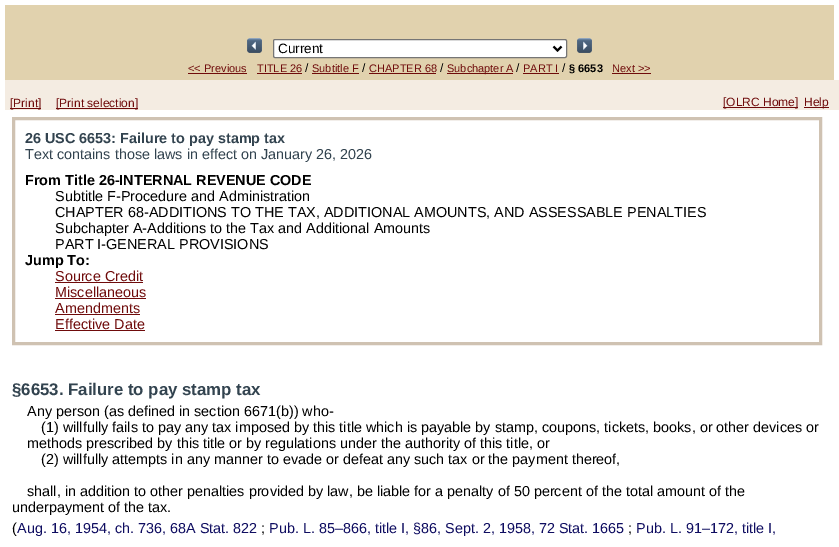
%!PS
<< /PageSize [839 547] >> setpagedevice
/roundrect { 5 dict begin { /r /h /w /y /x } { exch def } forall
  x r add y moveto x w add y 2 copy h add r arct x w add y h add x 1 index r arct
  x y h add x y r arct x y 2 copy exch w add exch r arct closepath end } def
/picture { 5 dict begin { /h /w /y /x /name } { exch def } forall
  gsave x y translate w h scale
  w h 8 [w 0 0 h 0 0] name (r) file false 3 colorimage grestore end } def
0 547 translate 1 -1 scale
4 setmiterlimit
1 setgray
0 0 839 547 rectfill
0.882 0.824 0.682 setrgbcolor
5 5 829 75 rectfill
(img1.rgb) 247 38 15 15 picture
1 setgray
273.5 39.5 293 18 1.5 roundrect gsave fill grestore
0.463 setgray
stroke
0 setgray
2 setlinewidth
newpath 553.5 46.5 moveto 557.5 50.5 lineto 561.5 46.5 lineto stroke
/LiberationSans-Regular [13.5 0 0 -13.5 0 0] selectfont
278 53 moveto (Current) show
(img2.rgb) 577 38 15 15 picture
/LiberationSans-Regular [11 0 0 -11 0 0] selectfont
0.435 0.043 0.043 setrgbcolor
188 72 moveto (<< Previous) show
188 73 59 1 rectfill
257 72 moveto (TITLE 26) show
257 73 45 1 rectfill
/LiberationSans-Regular [12 0 0 -12 0 0] selectfont
0 setgray
305 72 moveto (/) show
/LiberationSans-Regular [11 0 0 -11 0 0] selectfont
0.435 0.043 0.043 setrgbcolor
312 72 moveto (Subtitle F) show
312 73 47 1 rectfill
/LiberationSans-Regular [12 0 0 -12 0 0] selectfont
0 setgray
362 72 moveto (/) show
/LiberationSans-Regular [11 0 0 -11 0 0] selectfont
0.435 0.043 0.043 setrgbcolor
369 72 moveto (CHAPTER 68) show
369 73 67 1 rectfill
/LiberationSans-Regular [12 0 0 -12 0 0] selectfont
0 setgray
440 72 moveto (/) show
0.435 0.043 0.043 setrgbcolor
447 73 66 1 rectfill
/LiberationSans-Regular [11 0 0 -11 0 0] selectfont
447 72 moveto (Subchapter A) show
/LiberationSans-Regular [12 0 0 -12 0 0] selectfont
0 setgray
516 72 moveto (/) show
/LiberationSans-Regular [11 0 0 -11 0 0] selectfont
0.435 0.043 0.043 setrgbcolor
523 72 moveto (PART I) show
523 73 36 1 rectfill
/LiberationSans-Regular [12 0 0 -12 0 0] selectfont
0 setgray
562 72 moveto (/) show
/LiberationSans-Bold [11 0 0 -11 0 0] selectfont
569 72 moveto (§ 6653) show
/LiberationSans-Regular [11 0 0 -11 0 0] selectfont
0.435 0.043 0.043 setrgbcolor
612 72 moveto (Next >>) show
612 73 39 1 rectfill
0.957 0.925 0.886 setrgbcolor
5 80 834 30 rectfill
0.435 0.043 0.043 setrgbcolor
10 108 31 1 rectfill
/LiberationSans-Regular [12 0 0 -12 0 0] selectfont
10 107 moveto ([Print]) show
56 108 82 1 rectfill
56 107 moveto ([Print selection]) show
723 107 75 1 rectfill
723 106 moveto ([OLRC Home]) show
804 107 25 1 rectfill
804 106 moveto (Help) show
0.812 0.761 0.698 setrgbcolor
3 setlinewidth
13.5 118.5 807 225 rectstroke
/LiberationSans-Bold [14.4 0 0 -14.4 0 0] selectfont
0.196 0.263 0.31 setrgbcolor
25 143 moveto (26 USC 6653: Failure to pay stamp tax) show
/LiberationSans-Regular [14.4 0 0 -14.4 0 0] selectfont
25 159 moveto (Text contains those laws in effect on January 26, 2026) show
/LiberationSans-Bold [14.4 0 0 -14.4 0 0] selectfont
0 setgray
25 185 moveto (From Title 26-INTERNAL REVENUE CODE) show
/LiberationSans-Regular [14.4 0 0 -14.4 0 0] selectfont
55 201 moveto (Subtitle F-Procedure and Administration) show
55 217 moveto (CHAPTER 68-ADDITIONS TO THE TAX, ADDITIONAL AMOUNTS, AND ASSESSABLE PENALTIES) show
55 233 moveto (Subchapter A-Additions to the Tax and Additional Amounts) show
55 249 moveto (PART I-GENERAL PROVISIONS) show
/LiberationSans-Bold [14.4 0 0 -14.4 0 0] selectfont
25 265 moveto (Jump To:) show
/LiberationSans-Regular [14.4 0 0 -14.4 0 0] selectfont
0.435 0.043 0.043 setrgbcolor
55 281 moveto (Source Credit) show
55 282 88 1 rectfill
55 297 moveto (Miscellaneous) show
55 298 91 1 rectfill
55 313 moveto (Amendments) show
55 314 85 1 rectfill
55 329 moveto (Effective Date) show
55 330 90 1 rectfill
/LiberationSans-Bold [16.8 0 0 -16.8 0 0] selectfont
0.196 0.263 0.31 setrgbcolor
12 395 moveto (§6653. Failure to pay stamp tax) show
/LiberationSans-Regular [14.4 0 0 -14.4 0 0] selectfont
0 setgray
27 416 moveto (Any person \(as defined in section 6671\(b\)\) who-) show
41 432 moveto (\(1\) willfully fails to pay any tax imposed by this title which is payable by stamp, coupons, tickets, books, or other devices or) show
27 448 moveto (methods prescribed by this title or by regulations under the authority of this title, or) show
41 464 moveto (\(2\) willfully attempts in any manner to evade or defeat any such tax or the payment thereof,) show
27 496 moveto (shall, in addition to other penalties provided by law, be liable for a penalty of 50 percent of the total amount of the) show
12 512 moveto (underpayment of the tax.) show
12 533 moveto (\() show
0.059 0.051 0.38 setrgbcolor
17 533 moveto (Aug. 16, 1954, ch. 736, 68A Stat. 822) show
0 setgray
261 533 moveto (;) show
0.059 0.051 0.38 setrgbcolor
269 533 moveto (Pub. L. 85–866, title I, §86, Sept. 2, 1958, 72 Stat. 1665) show
0 setgray
628 533 moveto (;) show
0.059 0.051 0.38 setrgbcolor
636 533 moveto (Pub. L. 91–172, title I,) show
showpage
